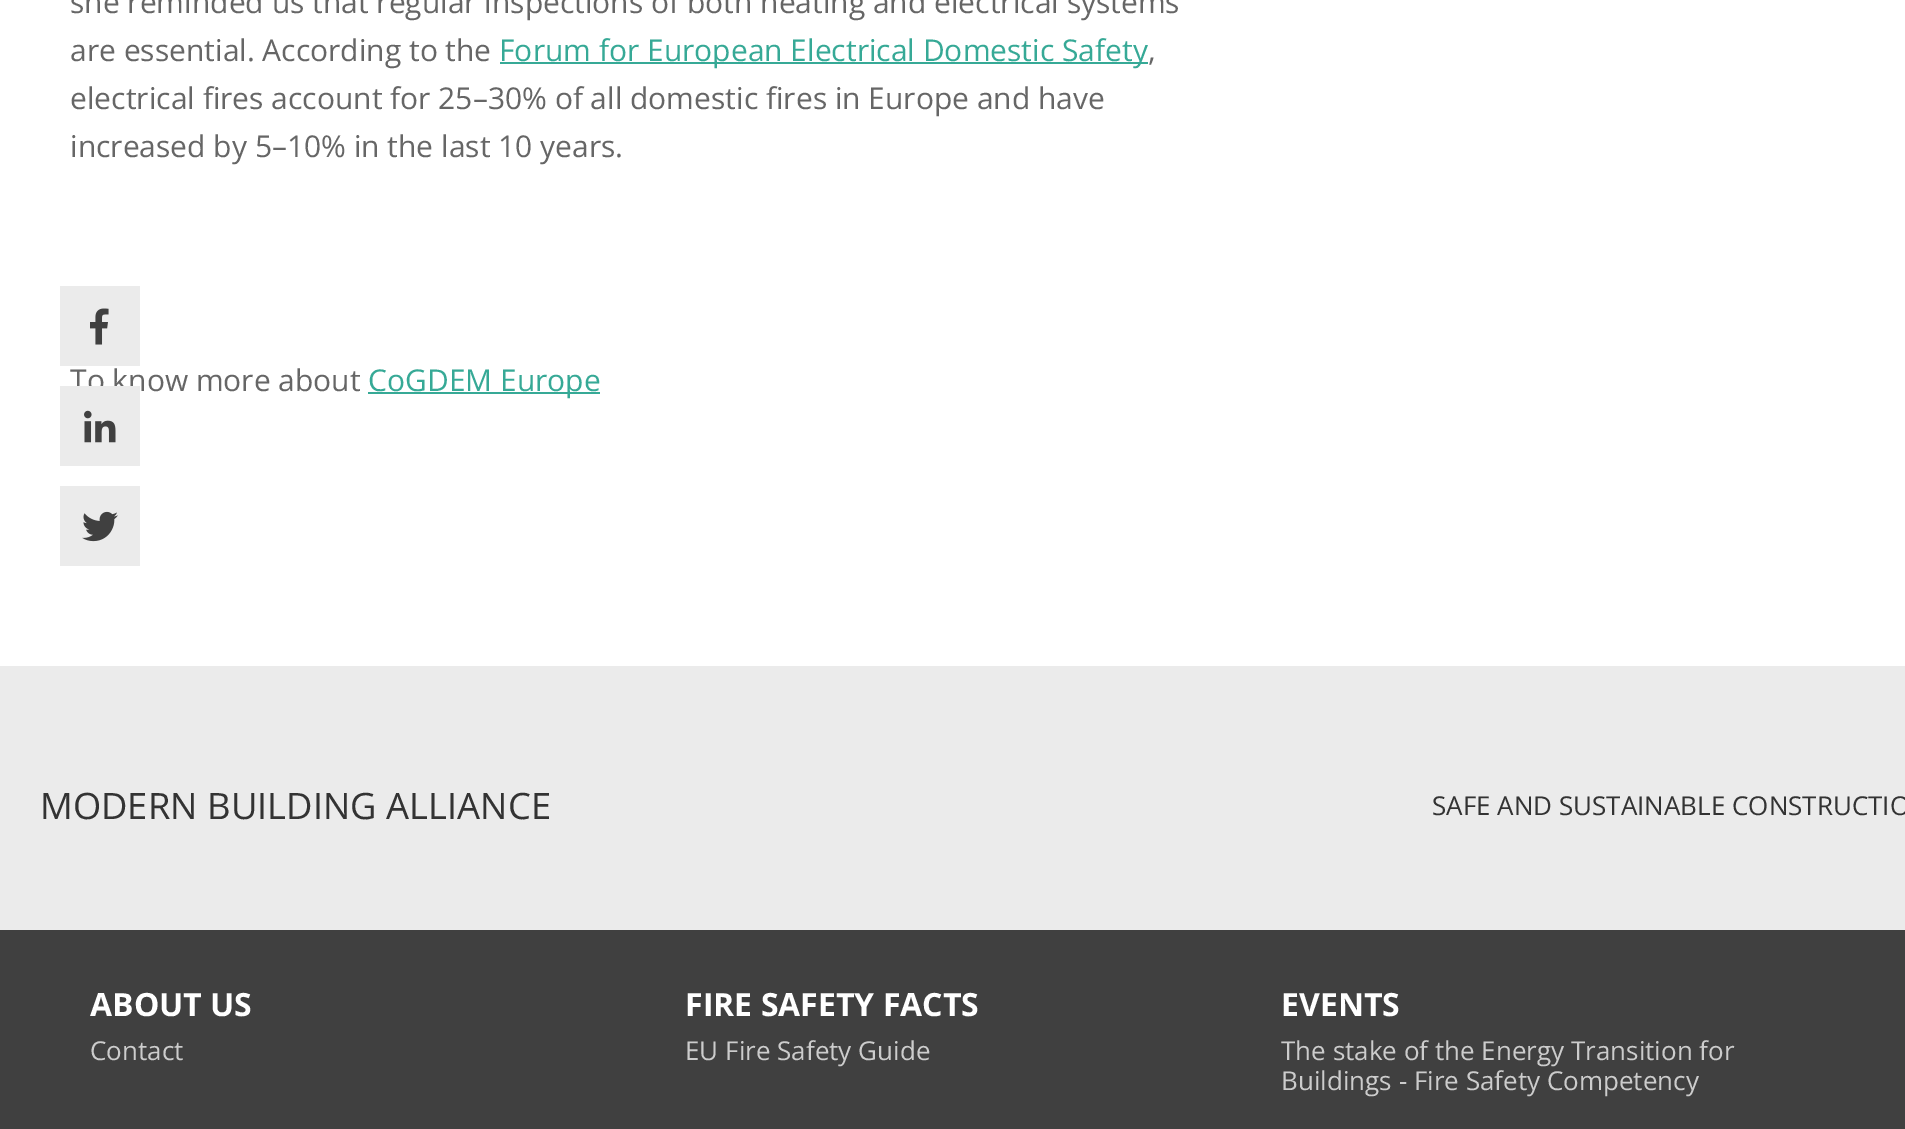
%!PS
<< /PageSize [1905 1129] >> setpagedevice
/picture { 5 dict begin { /h /w /y /x /name } { exch def } forall
  gsave x y translate w h scale
  w h 8 [w 0 0 h 0 0] name (r) file false 3 colorimage grestore end } def
0 1129 translate 1 -1 scale
4 setmiterlimit
0.251 setgray
0 0 1905 1129 rectfill
1 setgray
0 0 1905 666 rectfill
/OpenSans-Regular [30 0 0 -30 0 0] selectfont
0.4 setgray
70 13 moveto (she reminded us that regular inspections of both heating and electrical systems) show
70 61 moveto (are essential. According to the) show
0.212 0.663 0.588 setrgbcolor
500 62 648 2 rectfill
499 61 moveto (Forum for European Electrical Domestic Safety) show
0.4 setgray
1148 61 moveto (,) show
70 109 moveto (electrical fires account for 25–30% of all domestic fires in Europe and have) show
70 157 moveto (increased by 5–10% in the last 10 years.) show
70 391 moveto (To know more about) show
0.212 0.663 0.588 setrgbcolor
368 392 232 2 rectfill
368 391 moveto (CoGDEM Europe) show
0.922 setgray
60 286 80 80 rectfill
(img1.rgb) 90 308 19 37 picture
60 386 80 80 rectfill
(img2.rgb) 84 410 32 33 picture
60 486 80 80 rectfill
(img3.rgb) 82 511 36 31 picture
0 666 1905 264 rectfill
/OpenSans-Regular [36.4 0 0 -36.4 0 0] selectfont
0.2 setgray
40 819 moveto (MODERN BUILDING ALLIANCE) show
/OpenSans-Regular [26 0 0 -26 0 0] selectfont
1432 815 moveto (SAFE AND SUSTAINABLE CONSTRUCTIO) show
/OpenSans-Bold [32 0 0 -32 0 0] selectfont
1 setgray
90 1016 moveto (ABOUT US) show
/OpenSans-Regular [26 0 0 -26 0 0] selectfont
0.8 setgray
90 1060 moveto (Contact) show
/OpenSans-Bold [32 0 0 -32 0 0] selectfont
1 setgray
685 1016 moveto (FIRE SAFETY FACTS) show
/OpenSans-Regular [26 0 0 -26 0 0] selectfont
0.8 setgray
685 1060 moveto (EU Fire Safety Guide) show
/OpenSans-Bold [32 0 0 -32 0 0] selectfont
1 setgray
1281 1016 moveto (EVENTS) show
/OpenSans-Regular [26 0 0 -26 0 0] selectfont
0.8 setgray
1281 1060 moveto (The stake of the Energy Transition for) show
1281 1090 moveto (Buildings - Fire Safety Competency) show
showpage
